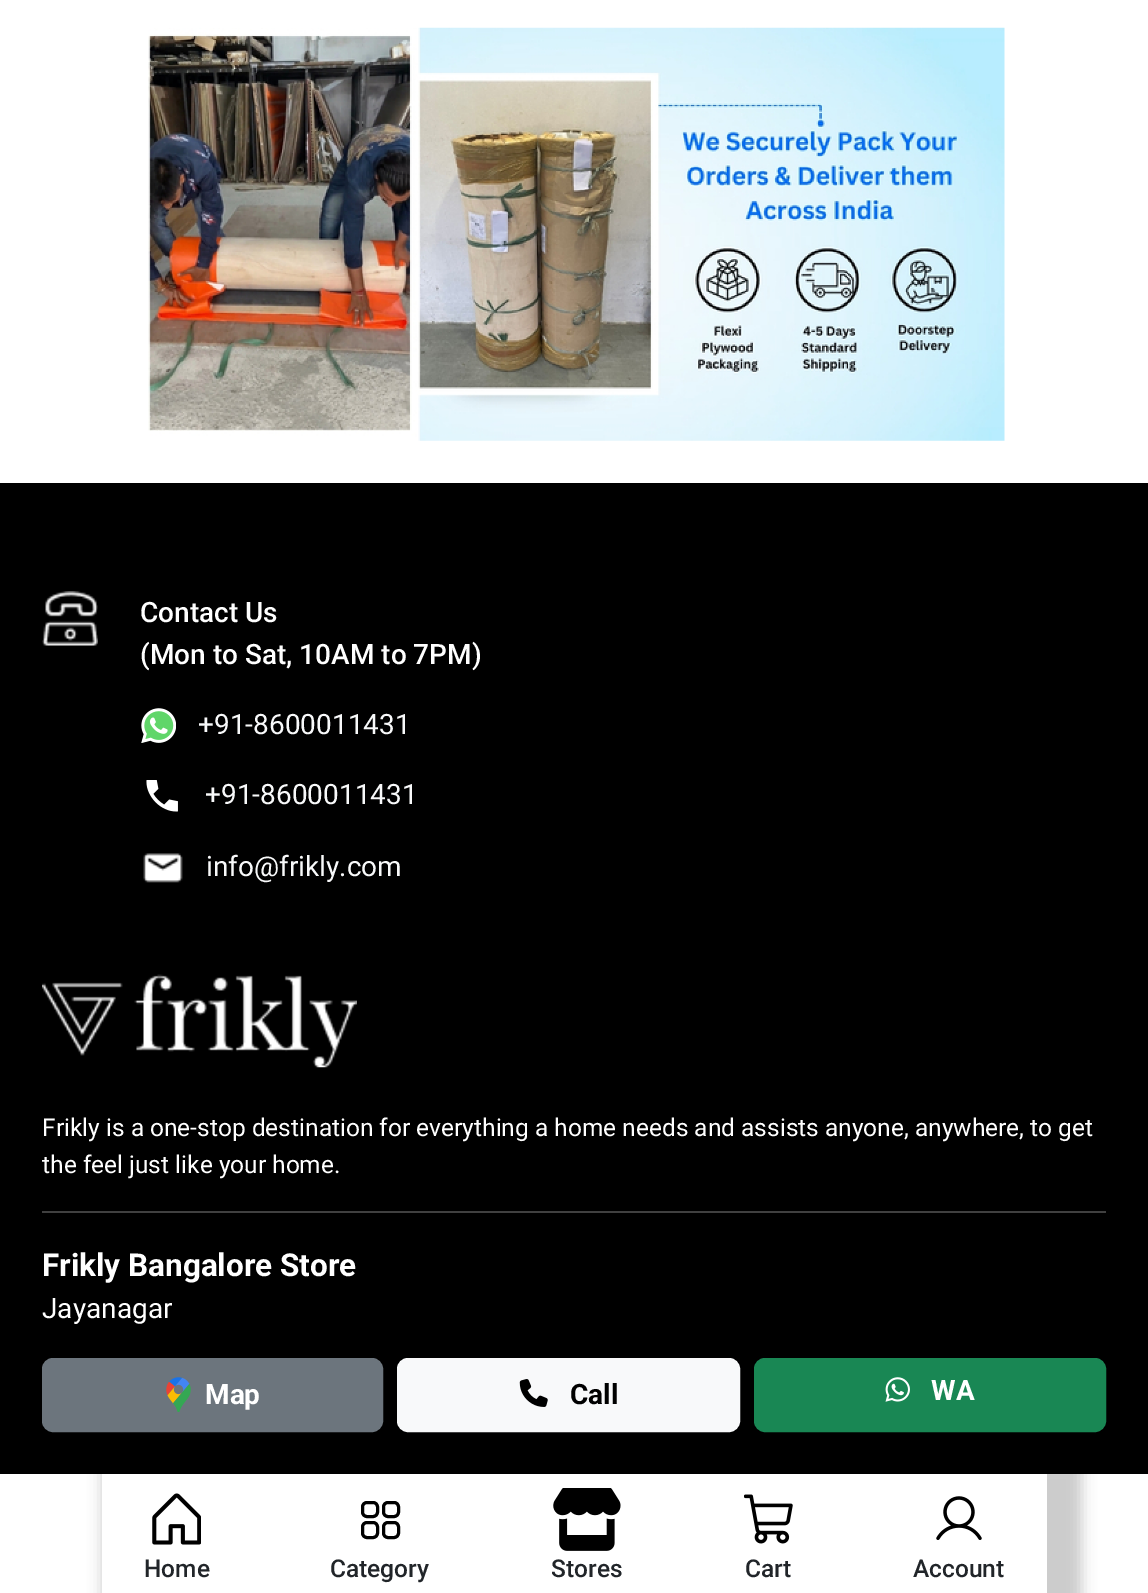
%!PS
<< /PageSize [1148 1593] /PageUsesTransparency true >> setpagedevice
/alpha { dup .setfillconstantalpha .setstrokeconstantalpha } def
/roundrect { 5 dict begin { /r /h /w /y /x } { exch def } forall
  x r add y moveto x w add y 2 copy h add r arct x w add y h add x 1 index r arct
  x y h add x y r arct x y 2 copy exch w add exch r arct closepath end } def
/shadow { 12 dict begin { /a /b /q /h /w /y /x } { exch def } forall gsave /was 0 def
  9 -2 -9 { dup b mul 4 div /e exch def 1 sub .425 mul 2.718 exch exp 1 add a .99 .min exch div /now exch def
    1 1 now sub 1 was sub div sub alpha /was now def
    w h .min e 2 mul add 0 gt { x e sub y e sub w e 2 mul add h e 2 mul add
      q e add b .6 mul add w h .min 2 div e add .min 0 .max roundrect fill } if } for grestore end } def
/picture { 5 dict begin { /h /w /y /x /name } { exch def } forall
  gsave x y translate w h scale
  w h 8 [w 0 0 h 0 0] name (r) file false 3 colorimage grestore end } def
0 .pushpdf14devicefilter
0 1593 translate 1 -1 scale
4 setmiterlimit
1 setgray
0 0 1148 1593 rectfill
(img1.rgb) 148 27 857 414 picture
0 setgray
0 483 1148 991 rectfill
(img2.rgb) 42 591 56 55 picture
/Roboto-Medium [28 0 0 -28 0 0] selectfont
1 setgray
140 622 moveto (Contact Us) show
140 664 moveto (\(Mon to Sat, 10AM to 7PM\)) show
(img3.rgb) 141 708 35 35 picture
/Roboto-Regular [28 0 0 -28 0 0] selectfont
0.973 0.976 0.98 setrgbcolor
198 734 moveto (+91-8600011431) show
(img4.rgb) 146 780 32 32 picture
205 804 moveto (+91-8600011431) show
(img5.rgb) 143 853 40 30 picture
206 876 moveto (info@frikly.com) show
(img6.rgb) 42 974 315 94 picture
/Roboto-Regular [24.5 0 0 -24.5 0 0] selectfont
1 setgray
42 1136 moveto (Frikly is a one-stop destination for everything a home needs and assists anyone, anywhere, to get) show
42 1173 moveto (the feel just like your home.) show
0.251 setgray
42 1211 1064 2 rectfill
/Roboto-Bold [31.5 0 0 -31.5 0 0] selectfont
1 setgray
42 1276 moveto (Frikly Bangalore Store) show
/Roboto-Regular [28 0 0 -28 0 0] selectfont
42 1318 moveto (Jayanagar) show
0.424 0.459 0.49 setrgbcolor
43 1359 339 72 10 roundrect gsave fill grestore
2 setlinewidth
stroke
(img7.rgb) 166 1377 25 35 picture
/Roboto-Bold [28 0 0 -28 0 0] selectfont
1 setgray
205 1404 moveto (Map) show
0.973 0.976 0.98 setrgbcolor
398 1359 341 72 10 roundrect gsave fill grestore
stroke
(img8.rgb) 519 1379 29 28 picture
0 setgray
570 1404 moveto (Call) show
0.098 0.529 0.329 setrgbcolor
755 1359 350 72 10 roundrect gsave fill grestore
stroke
(img9.rgb) 885 1377 25 25 picture
1 setgray
931 1400 moveto (WA) show
gsave
newpath 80 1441 moveto 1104 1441 lineto 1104 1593 lineto 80 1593 lineto closepath 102 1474 moveto 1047 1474 lineto 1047 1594 lineto 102 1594 lineto closepath eoclip newpath
0 setgray
102 1463 980 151 0 7 0.2 shadow
grestore
(img10.rgb) 152 1493 49 52 picture
/Roboto-Medium [24.5 0 0 -24.5 0 0] selectfont
0.129 0.145 0.161 setrgbcolor
144 1577 moveto (Home) show
0 setgray
3 setlinewidth
362.5 1502.5 15 14 4.5 roundrect stroke
383.5 1502.5 15 14 4.5 roundrect stroke
362.5 1522.5 15 15 4.5 roundrect stroke
383.5 1522.5 15 15 4.5 roundrect stroke
0.129 0.145 0.161 setrgbcolor
330 1577 moveto (Category) show
(img11.rgb) 553 1488 68 63 picture
551 1577 moveto (Stores) show
(img12.rgb) 744 1494 49 50 picture
745 1577 moveto (Cart) show
(img13.rgb) 936 1496 46 44 picture
913 1577 moveto (Account) show
.poppdf14devicefilter showpage
